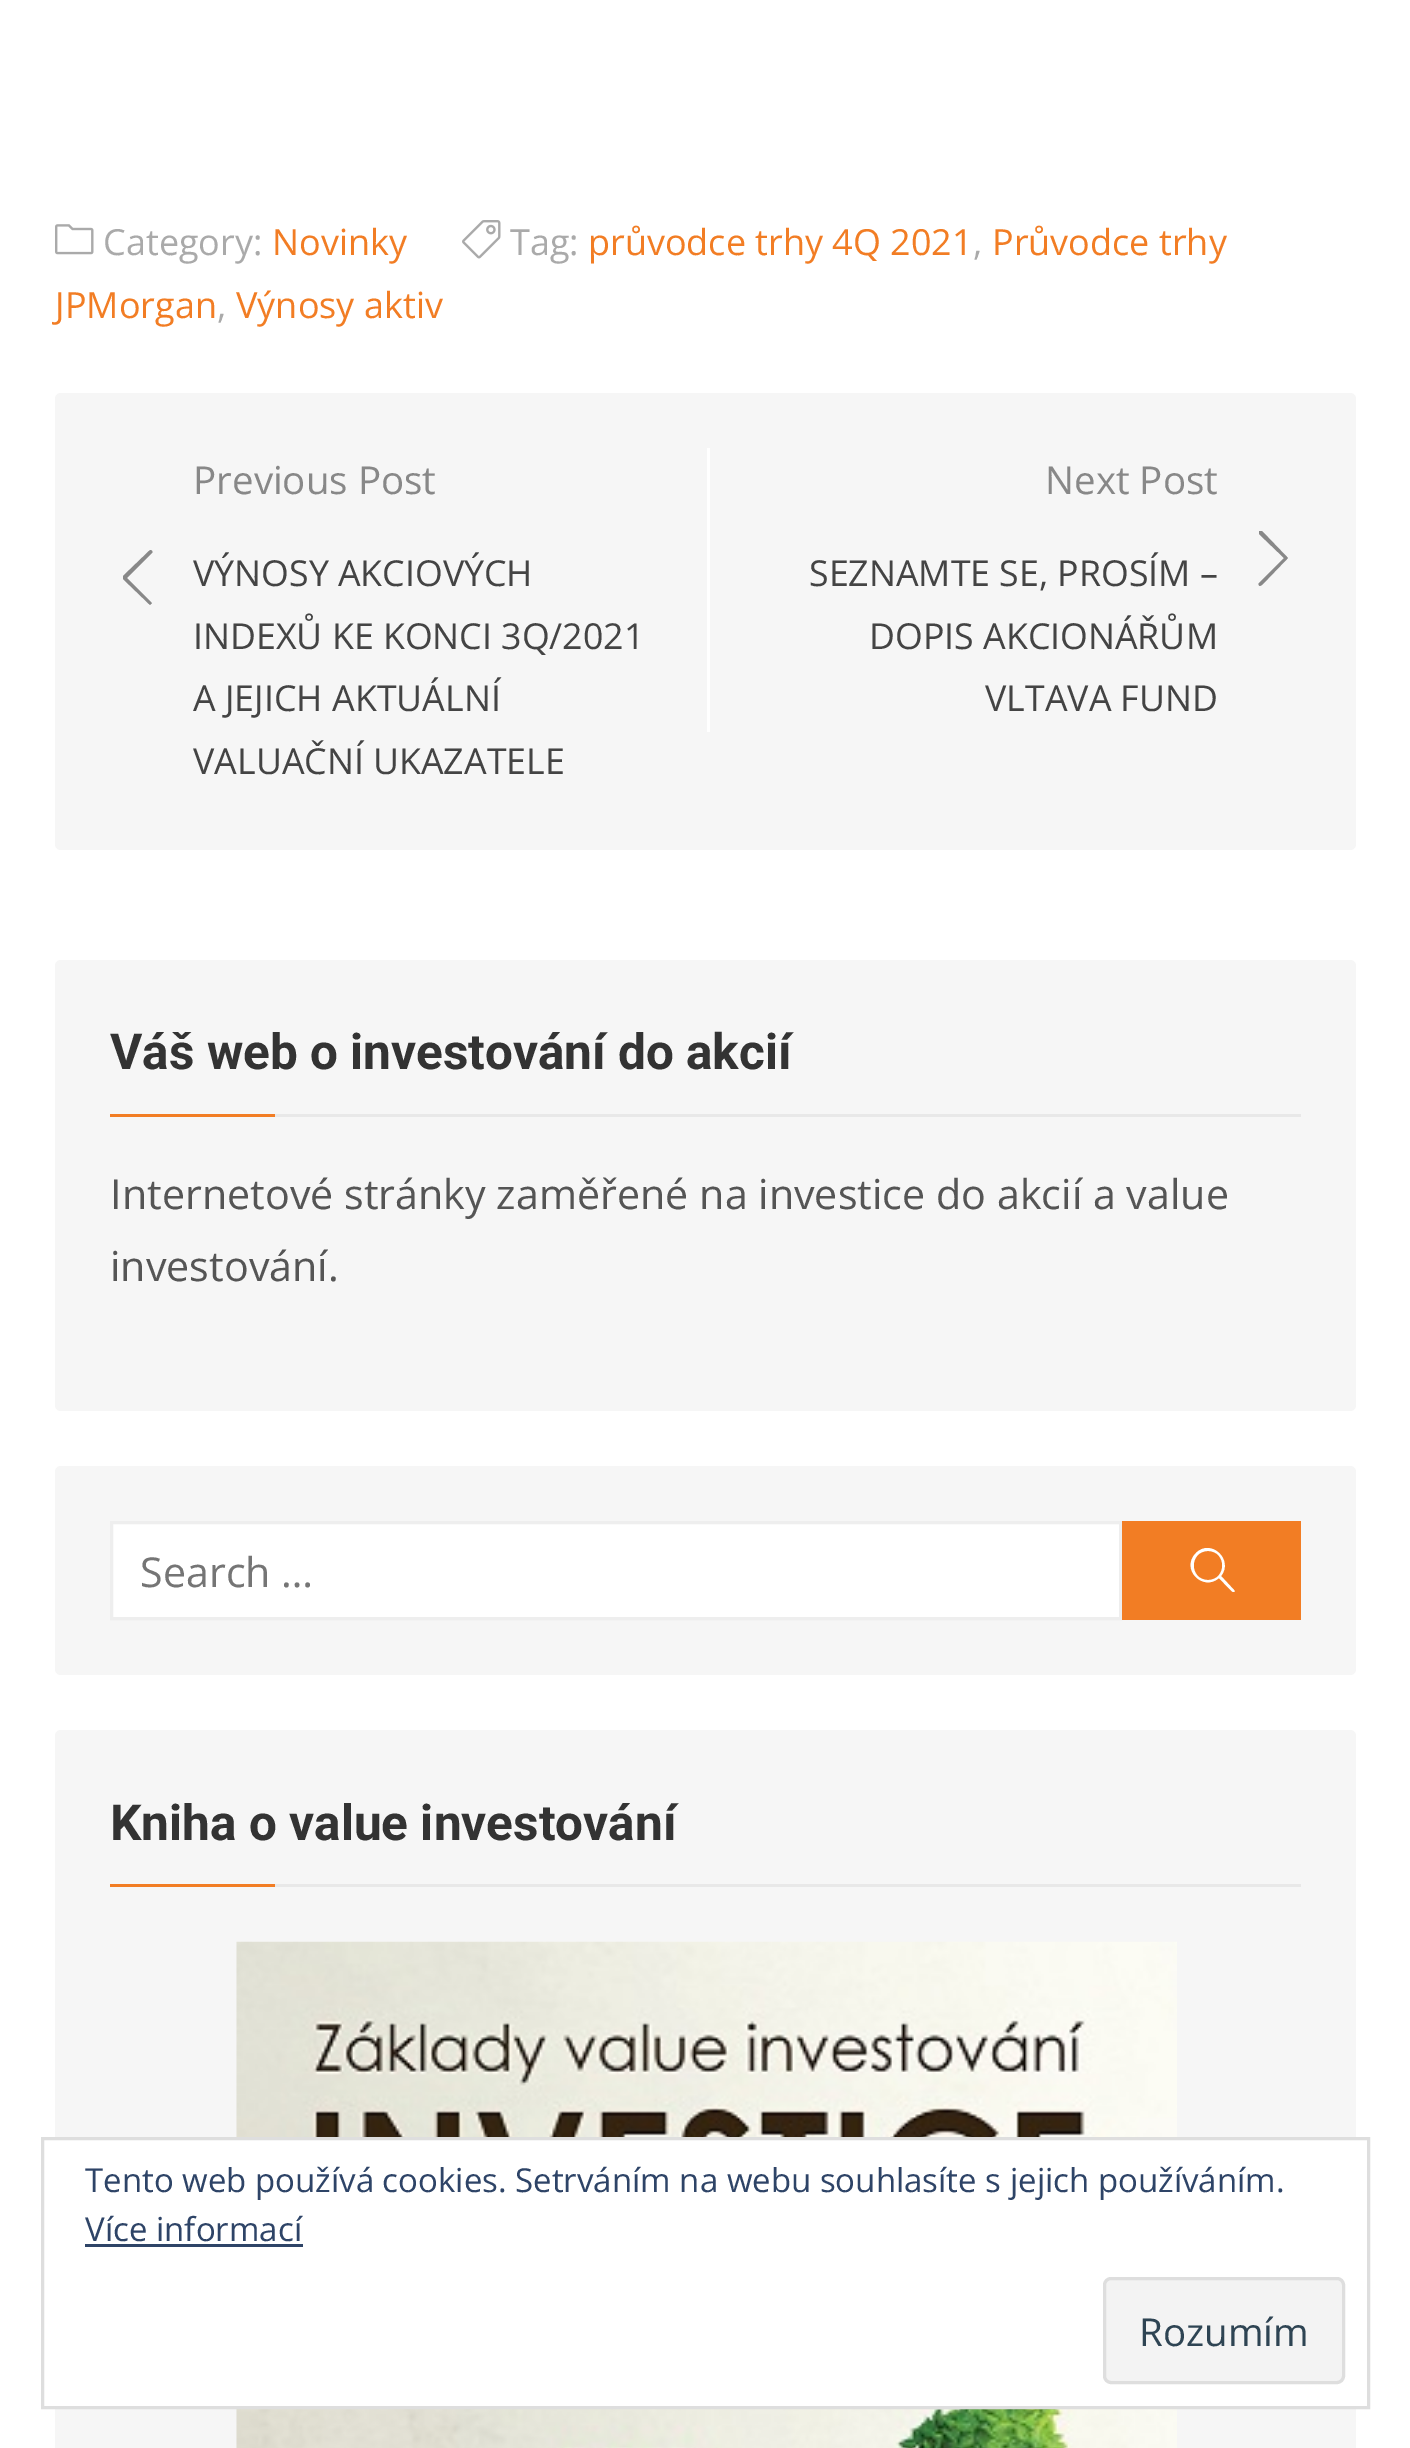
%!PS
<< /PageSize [1410 2448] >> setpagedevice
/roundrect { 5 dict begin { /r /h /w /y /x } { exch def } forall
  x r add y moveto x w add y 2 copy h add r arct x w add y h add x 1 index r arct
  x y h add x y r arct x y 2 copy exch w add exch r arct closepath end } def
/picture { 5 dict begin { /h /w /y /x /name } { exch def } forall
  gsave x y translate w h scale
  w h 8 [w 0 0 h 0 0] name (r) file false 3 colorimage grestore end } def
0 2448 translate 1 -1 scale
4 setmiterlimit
1 setgray
0 0 1410 2448 rectfill
(img1.rgb) 55 224 39 31 picture
/OpenSans-Regular [36 0 0 -36 0 0] selectfont
0.667 setgray
103 255 moveto (Category:) show
0.949 0.49 0.141 setrgbcolor
272 255 moveto (Novinky) show
(img2.rgb) 462 220 39 39 picture
0.667 setgray
510 255 moveto (Tag:) show
0.949 0.49 0.141 setrgbcolor
588 255 moveto (průvodce trhy 4Q 2021) show
0.667 setgray
973 255 moveto (,) show
0.949 0.49 0.141 setrgbcolor
992 255 moveto (Průvodce trhy) show
55 318 moveto (JPMorgan) show
0.667 setgray
217 318 moveto (,) show
0.949 0.49 0.141 setrgbcolor
236 318 moveto (Výnosy aktiv) show
0.965 setgray
55 393 1301 457 6 roundrect fill
/OpenSans-Regular [38.5 0 0 -38.5 0 0] selectfont
0.533 setgray
193 494 moveto (Previous Post) show
newpath 150 550 moveto 149 551 lineto 123 576 lineto 123 577 123 578 123 579 curveto 149 604 lineto 149 605 151 605 151 604 curveto 152 604 152 603 151 602 curveto 127 578 lineto 152 553 lineto 153 552 152 550 150 550 curveto closepath fill
/OpenSans-Regular [35.75 0 0 -35.75 0 0] selectfont
0.267 setgray
193 586 moveto (VÝNOSY AKCIOVÝCH) show
193 649 moveto (INDEXŮ KE KONCI 3Q/2021) show
193 711 moveto (A JEJICH AKTUÁLNÍ) show
193 774 moveto (VALUAČNÍ UKAZATELE) show
1 setgray
707 448 3 284 rectfill
/OpenSans-Regular [38.5 0 0 -38.5 0 0] selectfont
0.533 setgray
1045 494 moveto (Next Post) show
/OpenSans-Regular [35.75 0 0 -35.75 0 0] selectfont
0.267 setgray
809 586 moveto (SEZNAMTE SE, PROSÍM –) show
869 649 moveto (DOPIS AKCIONÁŘŮM) show
985 711 moveto (VLTAVA FUND) show
0.533 setgray
newpath 1260 586 moveto 1262 585 lineto 1287 559 lineto 1288 559 1288 557 1287 557 curveto 1262 531 lineto 1261 531 1260 531 1259 531 curveto 1259 532 1259 533 1259 534 curveto 1284 558 lineto 1259 583 lineto 1258 584 1259 586 1260 586 curveto closepath fill
0.965 setgray
55 960 1301 451 6 roundrect fill
0.91 setgray
275 1114 1026 3 rectfill
/Roboto-Bold [49.5 0 0 -49.5 0 0] selectfont
0.2 setgray
110 1069 moveto (Váš web o investování do akcií) show
0.949 0.49 0.141 setrgbcolor
110 1114 165 3 rectfill
/OpenSans-Regular [41.25 0 0 -41.25 0 0] selectfont
0.333 setgray
110 1209 moveto (Internetové stránky zaměřené na investice do akcií a value) show
110 1281 moveto (investování.) show
0.965 setgray
55 1466 1301 209 6 roundrect fill
1 setgray
newpath 111.5 1522.5 moveto 1120.5 1522.5 lineto 1120.5 1618.5 lineto 111.5 1618.5 lineto closepath gsave fill grestore
0.933 setgray
3 setlinewidth
stroke
0.459 setgray
140 1587 moveto (Search …) show
0.949 0.49 0.141 setrgbcolor
1122 1521 179 99 rectfill
1 setgray
newpath 1234 1590 moveto 1235 1591 1235 1592 1233 1592 curveto 1232 1592 1221 1580 1219 1578 curveto 1203 1592 1180 1569 1196 1553 curveto 1211 1538 1234 1560 1221 1576 curveto closepath 1208 1580 moveto 1227 1580 1227 1551 1208 1551 curveto 1189 1551 1189 1580 1208 1580 curveto closepath fill
0.965 setgray
55 1730 1301 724 6 roundrect fill
0.91 setgray
275 1884 1026 3 rectfill
/Roboto-Bold [49.5 0 0 -49.5 0 0] selectfont
0.2 setgray
110 1840 moveto (Kniha o value investování) show
0.949 0.49 0.141 setrgbcolor
110 1884 165 3 rectfill
(img3.rgb) 236 1941 941 507 picture
1 setgray
55 2140 1301 266 rectfill
0.871 setgray
42.5 2138.5 1326 269 rectstroke
/OpenSans-Regular [33 0 0 -33 0 0] selectfont
0.18 0.267 0.404 setrgbcolor
85 2192 moveto (Tento web používá cookies. Setrváním na webu souhlasíte s jejich používáním.) show
85 2241 moveto (Více informací) show
85 2244 218 3 rectfill
0.953 setgray
1104.5 2278.5 239 104 6.5 roundrect gsave fill grestore
0.871 setgray
stroke
/OpenSans-Regular [38.5 0 0 -38.5 0 0] selectfont
0.18 0.267 0.325 setrgbcolor
1139 2346 moveto (Rozumím) show
showpage
